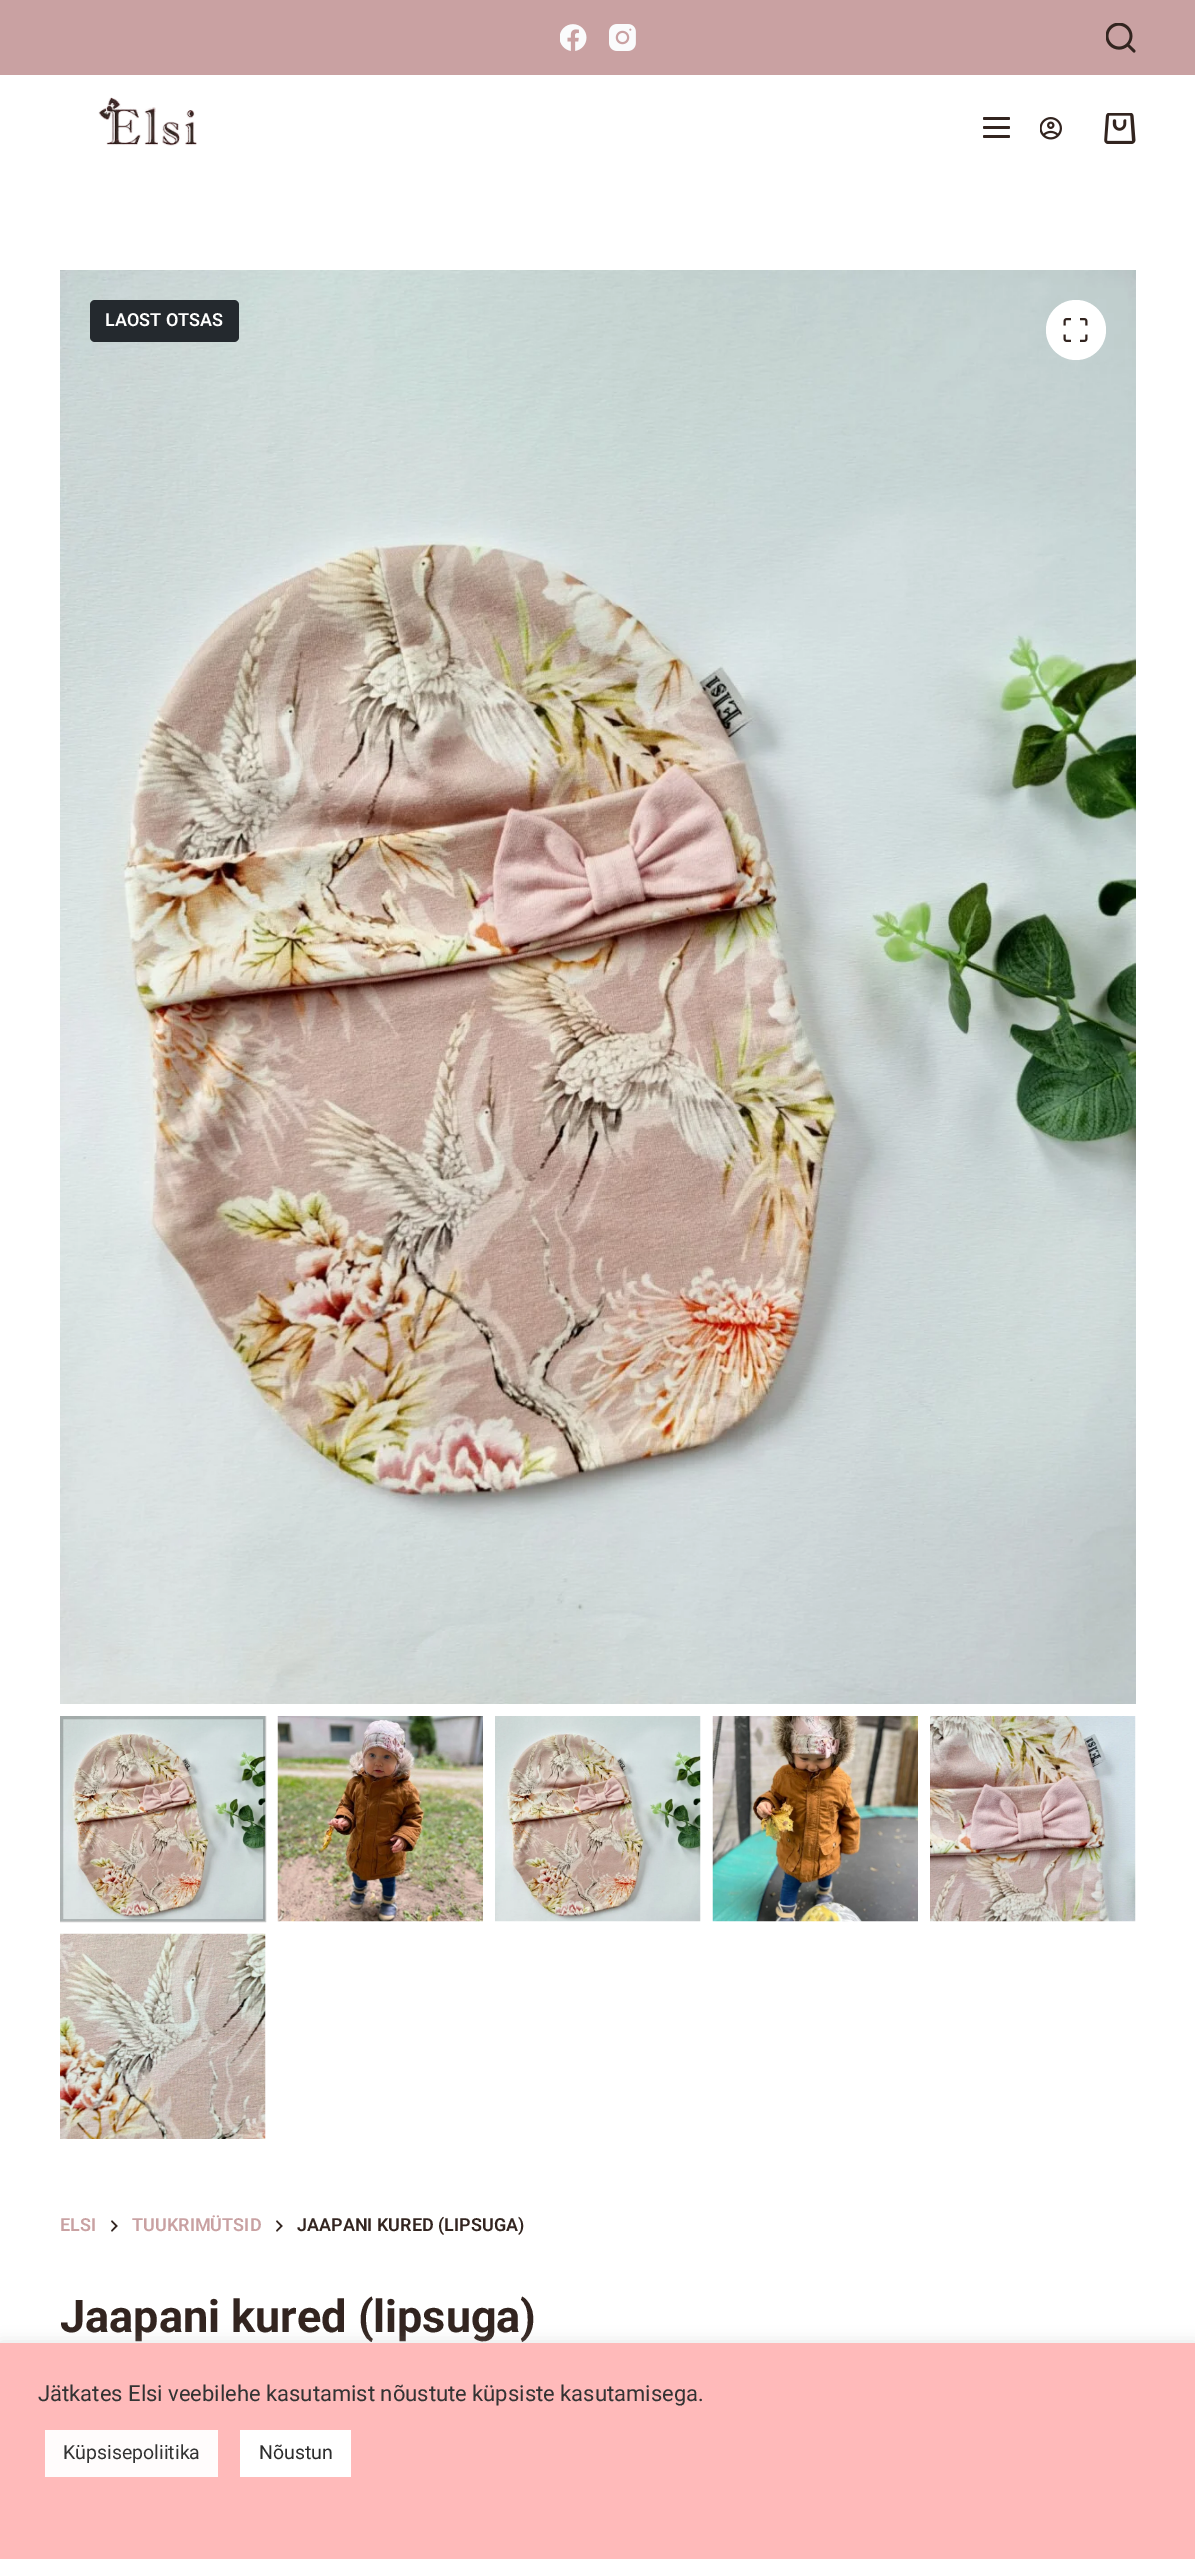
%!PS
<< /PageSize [1195 2559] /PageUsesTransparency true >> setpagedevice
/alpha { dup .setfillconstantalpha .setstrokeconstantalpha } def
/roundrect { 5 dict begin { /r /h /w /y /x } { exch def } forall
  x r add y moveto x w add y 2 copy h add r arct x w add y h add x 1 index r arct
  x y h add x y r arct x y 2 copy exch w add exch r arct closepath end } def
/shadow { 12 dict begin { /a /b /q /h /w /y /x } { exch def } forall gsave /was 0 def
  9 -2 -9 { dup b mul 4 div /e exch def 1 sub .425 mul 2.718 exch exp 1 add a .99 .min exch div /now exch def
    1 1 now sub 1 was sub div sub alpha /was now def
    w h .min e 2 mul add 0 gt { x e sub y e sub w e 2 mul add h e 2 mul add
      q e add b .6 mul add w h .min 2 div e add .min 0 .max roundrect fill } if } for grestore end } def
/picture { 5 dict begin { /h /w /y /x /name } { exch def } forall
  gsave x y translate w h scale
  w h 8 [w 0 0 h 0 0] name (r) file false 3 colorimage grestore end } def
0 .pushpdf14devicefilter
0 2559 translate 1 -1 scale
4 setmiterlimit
1 setgray
0 0 1195 2559 rectfill
0.788 0.631 0.635 setrgbcolor
0 0 1195 75 rectfill
(img1.rgb) 560 24 27 27 picture
(img2.rgb) 609 24 27 27 picture
(img3.rgb) 1106 23 30 30 picture
(img4.rgb) 98 97 99 49 picture
0.196 0.141 0.122 setrgbcolor
983 117 27 3 1.5 roundrect fill
983 126 27 3 1.5 roundrect fill
983 135 27 3 1.5 roundrect fill
(img5.rgb) 1040 117 22 23 picture
(img6.rgb) 1104 113 32 31 picture
(img7.rgb) 60 270 1076 1434 picture
(img8.rgb) 60 1716 206 206 picture
0.2 alpha
0 setgray
3 setlinewidth
61.5 1717.5 203 203 rectstroke
1 alpha
(img9.rgb) 277 1716 206 206 picture
(img8.rgb) 495 1716 206 206 picture
(img10.rgb) 712 1716 206 206 picture
(img11.rgb) 930 1716 206 206 picture
(img12.rgb) 60 1933 206 206 picture
0.141 0.161 0.18 setrgbcolor
90 300 149 42 5 roundrect fill
/Roboto-SemiBold [18 0 0 -18 0 0] selectfont
1 setgray
105 326 moveto (LAOST OTSAS) show
newpath 1076 330 30 0 360 arc closepath fill
(img13.rgb) 1063 318 25 24 picture
0.788 0.631 0.635 setrgbcolor
60 2231 moveto (ELSI) show
(img14.rgb) 111 2220 7 12 picture
132 2231 moveto (TUUKRIMÜTSID) show
(img14.rgb) 276 2220 7 12 picture
0.196 0.141 0.122 setrgbcolor
297 2231 moveto (JAAPANI KURED \(LIPSUGA\)) show
/Roboto-Bold [45 0 0 -45 0 0] selectfont
60 2332 moveto (Jaapani kured \(lipsuga\)) show
0.675 0.671 0.671 setrgbcolor
0 2342 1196 216 0 7.5 0.3 shadow
1 0.729 0.729 setrgbcolor
0 2343 1195 216 rectfill
/Roboto-Regular [22 0 0 -22 0 0] selectfont
0.2 setgray
38 2401 moveto (Jätkates Elsi veebilehe kasutamist nõustute küpsiste kasutamisega.) show
1 0.988 0.988 setrgbcolor
45 2430 173 47 rectfill
/Roboto-Regular [19.5 0 0 -19.5 0 0] selectfont
0.2 setgray
63 2459 moveto (Küpsisepoliitika) show
1 setgray
240 2430 111 47 rectfill
0.176 setgray
259 2459 moveto (Nõustun) show
.poppdf14devicefilter showpage
